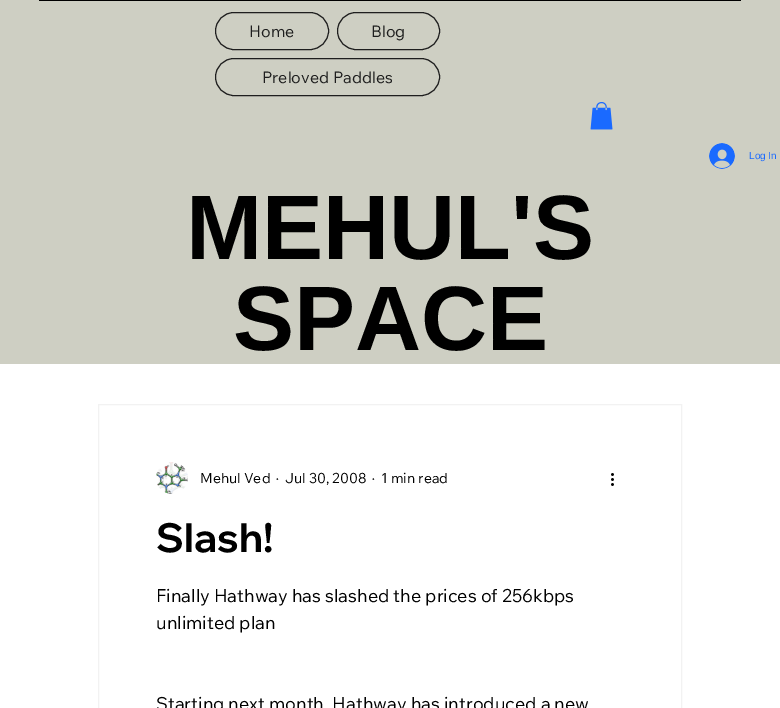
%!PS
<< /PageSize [780 708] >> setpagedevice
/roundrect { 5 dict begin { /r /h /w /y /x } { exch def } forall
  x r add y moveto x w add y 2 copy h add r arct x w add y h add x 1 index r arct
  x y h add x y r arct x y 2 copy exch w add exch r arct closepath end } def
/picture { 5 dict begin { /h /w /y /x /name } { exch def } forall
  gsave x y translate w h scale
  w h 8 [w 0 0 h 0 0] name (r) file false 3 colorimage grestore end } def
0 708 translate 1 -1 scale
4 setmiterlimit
1 setgray
0 0 780 708 rectfill
0.808 0.812 0.765 setrgbcolor
0 0 780 364 rectfill
0 setgray
39 0 702 1 rectfill
0.118 setgray
215.5 12.5 113 37 18.5 roundrect stroke
/WixMadeforText-Regular [16 0 0 -16 0 0] selectfont
249 37 moveto (Home) show
337.5 12.5 102 37 18.5 roundrect stroke
371 37 moveto (Blog) show
215.5 58.5 224 37 18.5 roundrect stroke
262 83 moveto (Preloved Paddles) show
(img1.rgb) 590 102 23 28 picture
(img2.rgb) 709 143 26 26 picture
/LiberationSans-Regular [10 0 0 -10 0 0] selectfont
0.102 0.416 1 setrgbcolor
749 159 moveto (Log In) show
/LiberationSans-Bold [91.5 0 0 -91.5 0 0] selectfont
0 setgray
186 259 moveto (MEHUL'S) show
233 350 moveto (SPACE) show
0.949 setgray
98.5 404.5 583 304 rectstroke
(img3.rgb) 156 462 32 32 picture
/WixMadeforText-Regular [14 0 0 -14 0 0] selectfont
0 setgray
200 483 moveto (Mehul Ved) show
276 483 moveto (·) show
285 483 moveto (Jul 30, 2008) show
372 483 moveto (·) show
381 483 moveto (1 min read) show
(img4.rgb) 611 473 3 13 picture
/WixMadeforDisplay-Bold [40 0 0 -40 0 0] selectfont
156 552 moveto (Slash!) show
/WixMadeforText-Regular [18 0 0 -18 0 0] selectfont
156 602 moveto (Finally Hathway has slashed the prices of 256kbps) show
156 629 moveto (unlimited plan) show
156 710 moveto (Starting next month, Hathway has introduced a new) show
showpage
